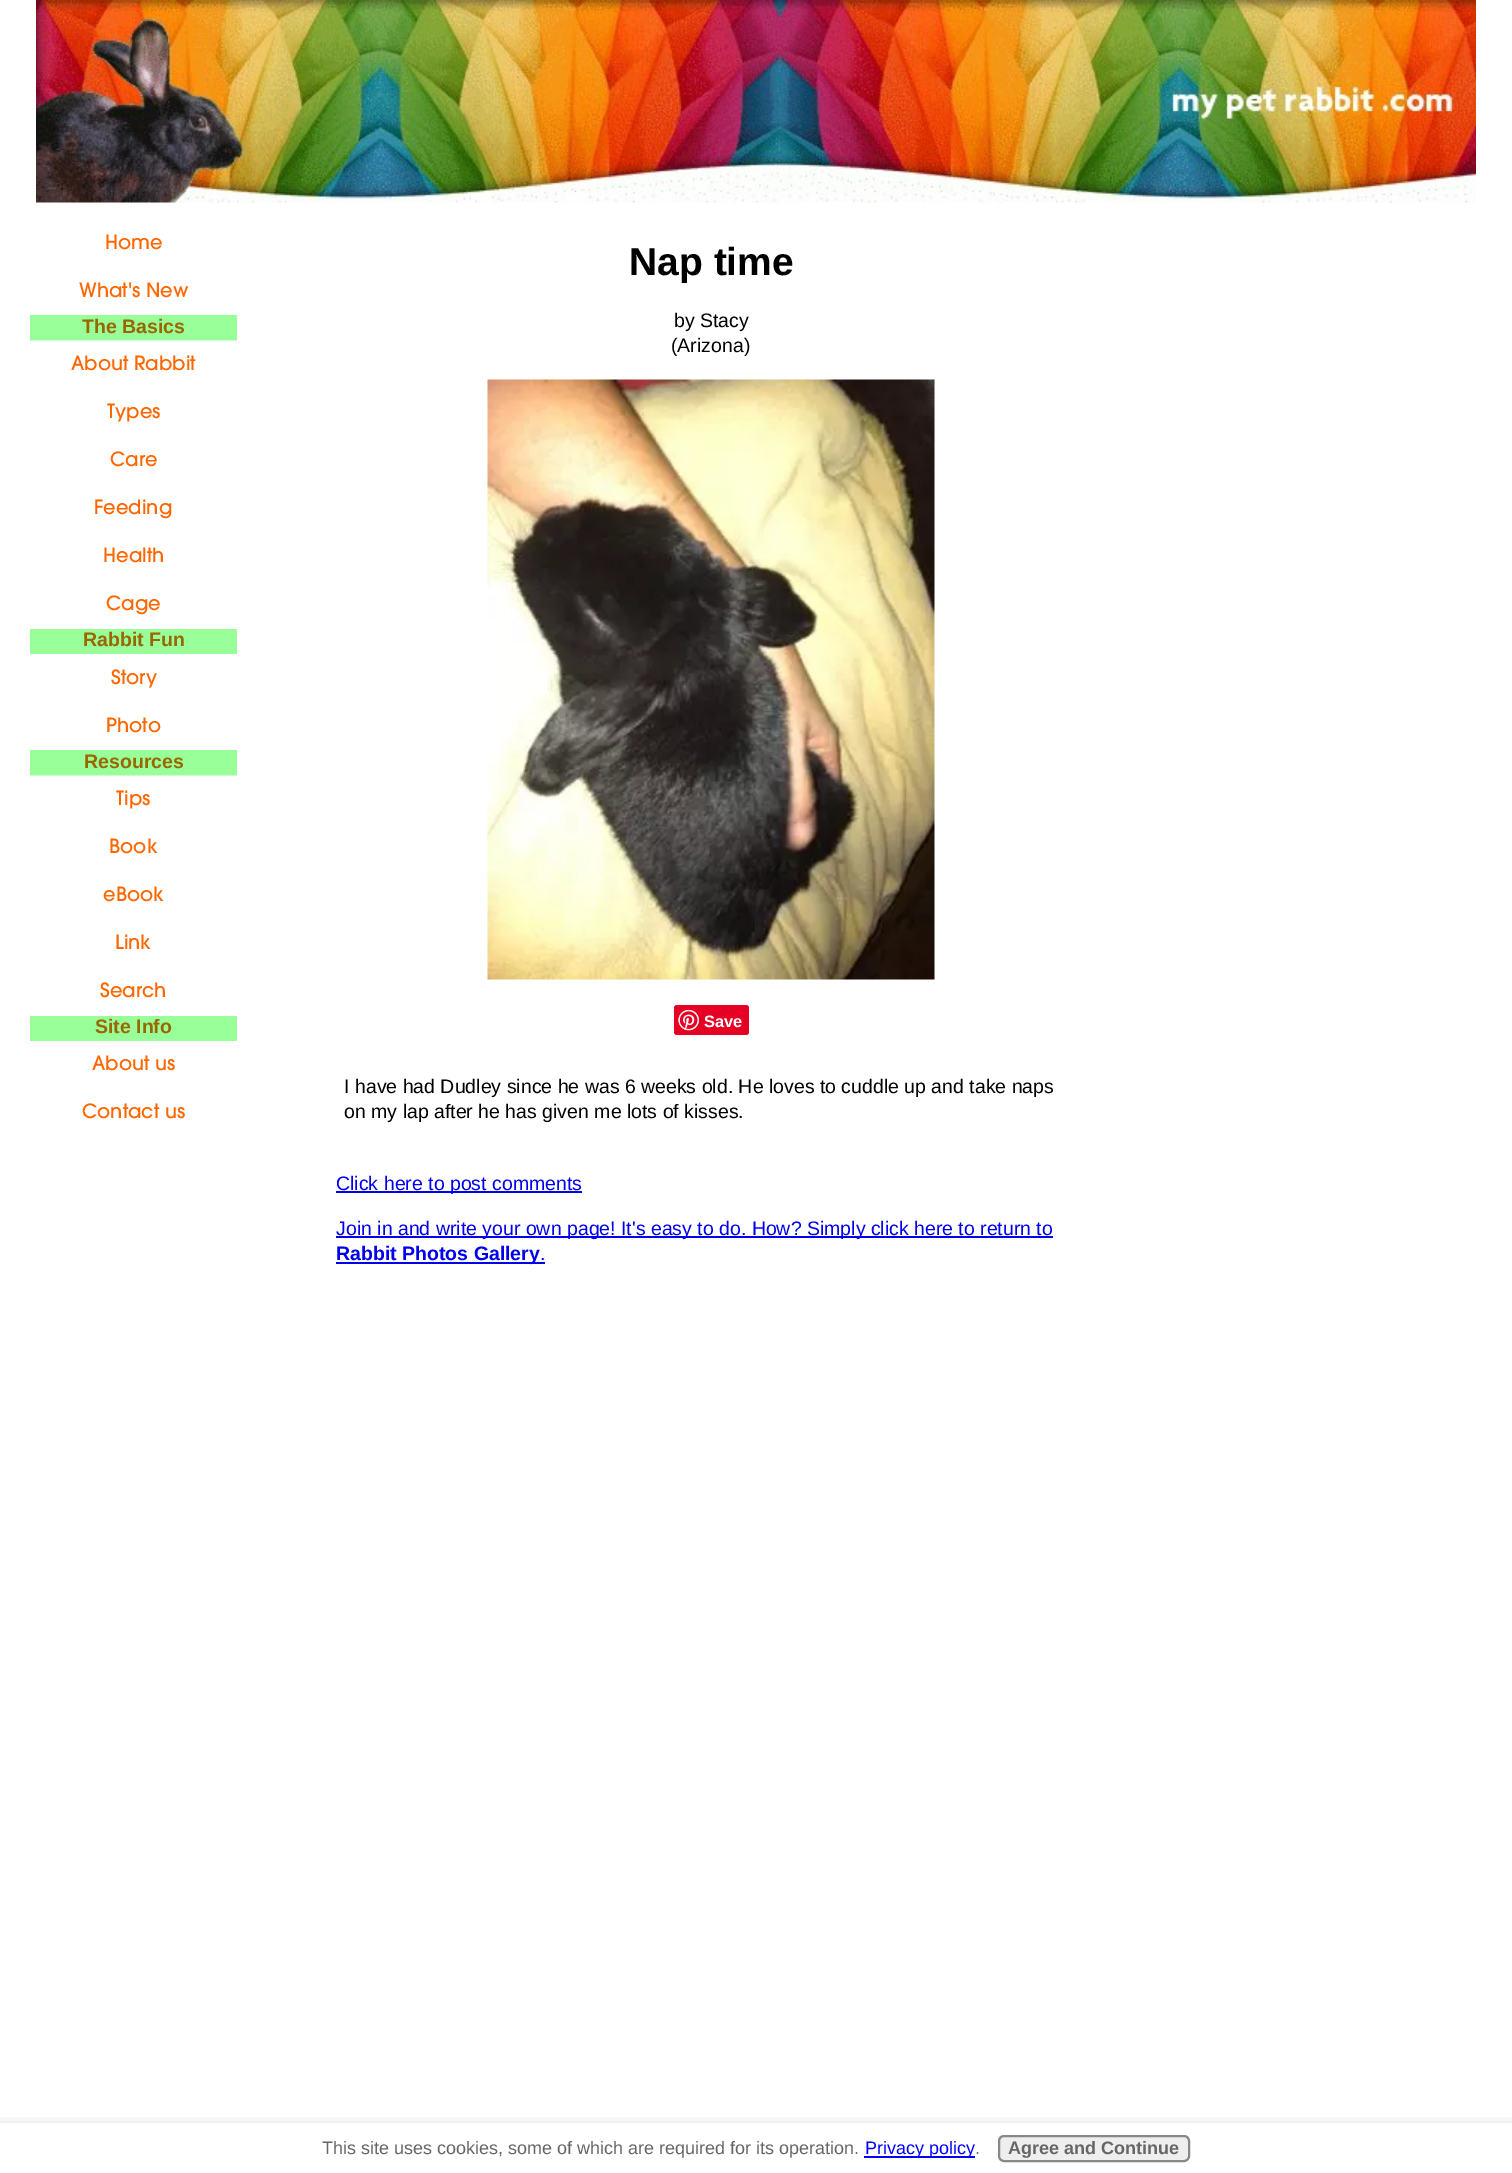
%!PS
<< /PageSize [1512 2173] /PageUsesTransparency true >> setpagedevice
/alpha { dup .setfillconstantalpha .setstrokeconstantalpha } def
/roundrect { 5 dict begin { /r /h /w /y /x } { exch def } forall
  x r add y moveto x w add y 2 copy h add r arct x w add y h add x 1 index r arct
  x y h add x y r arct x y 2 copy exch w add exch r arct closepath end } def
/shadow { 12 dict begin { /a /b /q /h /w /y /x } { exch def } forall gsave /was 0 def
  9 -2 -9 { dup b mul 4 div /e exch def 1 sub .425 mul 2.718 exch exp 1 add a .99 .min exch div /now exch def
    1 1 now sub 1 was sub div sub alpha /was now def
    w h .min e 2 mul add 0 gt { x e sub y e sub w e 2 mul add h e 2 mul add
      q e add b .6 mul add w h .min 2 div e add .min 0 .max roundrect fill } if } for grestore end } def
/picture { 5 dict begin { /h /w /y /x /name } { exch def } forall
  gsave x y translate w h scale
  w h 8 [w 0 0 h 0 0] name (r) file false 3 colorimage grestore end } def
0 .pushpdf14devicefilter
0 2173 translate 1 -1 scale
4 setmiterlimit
1 setgray
0 0 1512 2173 rectfill
(img1.rgb) 36 0 1440 203 picture
/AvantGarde-Regular [19.5 0 0 -19.5 0 0] selectfont
1 0.4 0 setrgbcolor
105 249 moveto (Home) show
79 297 moveto (What's New) show
0.6 1 0.6 setrgbcolor
30 315 207 25 rectfill
/LiberationSans-Bold [19.5 0 0 -19.5 0 0] selectfont
0.6 0.4 0 setrgbcolor
82 333 moveto (The Basics) show
0.8 1 0.8 setrgbcolor
30 340 207 1 rectfill
/AvantGarde-Regular [19.5 0 0 -19.5 0 0] selectfont
1 0.4 0 setrgbcolor
71 370 moveto (About Rabbit) show
107 418 moveto (Types) show
110 466 moveto (Care) show
94 514 moveto (Feeding) show
103 562 moveto (Health) show
106 610 moveto (Cage) show
0.6 1 0.6 setrgbcolor
30 629 207 25 rectfill
/LiberationSans-Bold [19.5 0 0 -19.5 0 0] selectfont
0.6 0.4 0 setrgbcolor
83 646 moveto (Rabbit Fun) show
/AvantGarde-Regular [19.5 0 0 -19.5 0 0] selectfont
1 0.4 0 setrgbcolor
111 684 moveto (Story) show
106 732 moveto (Photo) show
0.6 1 0.6 setrgbcolor
30 750 207 25 rectfill
/LiberationSans-Bold [19.5 0 0 -19.5 0 0] selectfont
0.6 0.4 0 setrgbcolor
84 768 moveto (Resources) show
0.8 1 0.8 setrgbcolor
30 775 207 1 rectfill
/AvantGarde-Regular [19.5 0 0 -19.5 0 0] selectfont
1 0.4 0 setrgbcolor
116 805 moveto (Tips) show
109 853 moveto (Book) show
103 901 moveto (eBook) show
115 949 moveto (Link) show
100 997 moveto (Search) show
0.6 1 0.6 setrgbcolor
30 1016 207 25 rectfill
/LiberationSans-Bold [19.5 0 0 -19.5 0 0] selectfont
0.6 0.4 0 setrgbcolor
95 1033 moveto (Site Info) show
/AvantGarde-Regular [19.5 0 0 -19.5 0 0] selectfont
1 0.4 0 setrgbcolor
92 1070 moveto (About us) show
82 1118 moveto (Contact us) show
/LiberationSans-Bold [39 0 0 -39 0 0] selectfont
0 setgray
629 275 moveto (Nap time) show
/LiberationSans-Regular [19.5 0 0 -19.5 0 0] selectfont
674 327 moveto (by Stacy) show
671 352 moveto (\(Arizona\)) show
(img2.rgb) 487 379 448 601 picture
0.902 0 0.137 setrgbcolor
674 1005 75 30 3 roundrect fill
(img3.rgb) 678 1010 21 21 picture
/LiberationSans-Bold [16.5 0 0 -16.5 0 0] selectfont
1 setgray
704 1027 moveto (Save) show
/LiberationSans-Regular [19.5 0 0 -19.5 0 0] selectfont
0 setgray
344 1093 moveto (I have had Dudley since he was 6 weeks old. He loves to cuddle up and take naps) show
344 1118 moveto (on my lap after he has given me lots of kisses.) show
0 0 0.933 setrgbcolor
336 1191 246 2 rectfill
336 1190 moveto (Click here to post comments) show
336 1236 717 2 rectfill
336 1235 moveto (Join in and write your own page! It's easy to do. How? Simply click here to return to) show
336 1262 209 2 rectfill
/LiberationSans-Bold [19.5 0 0 -19.5 0 0] selectfont
336 1260 moveto (Rabbit Photos Gallery) show
/LiberationSans-Regular [19.5 0 0 -19.5 0 0] selectfont
540 1260 moveto (.) show
gsave
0 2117 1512 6 rectclip
0 setgray
-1 2127 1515 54 0 7.5 0.2 shadow
grestore
/LiberationSans-Regular [18 0 0 -18 0 0] selectfont
0.4 setgray
322 2154 moveto (This site uses cookies, some of which are required for its operation.) show
0 0 1 setrgbcolor
864 2156 111 2 rectfill
865 2154 moveto (Privacy policy) show
0.4 setgray
975 2154 moveto (.) show
0.933 setgray
999 2136 190 25 5 roundrect gsave fill grestore
0.533 setgray
2 setlinewidth
stroke
/LiberationSans-Bold [18 0 0 -18 0 0] selectfont
0.4 setgray
1008 2154 moveto (Agree and Continue) show
.poppdf14devicefilter showpage
